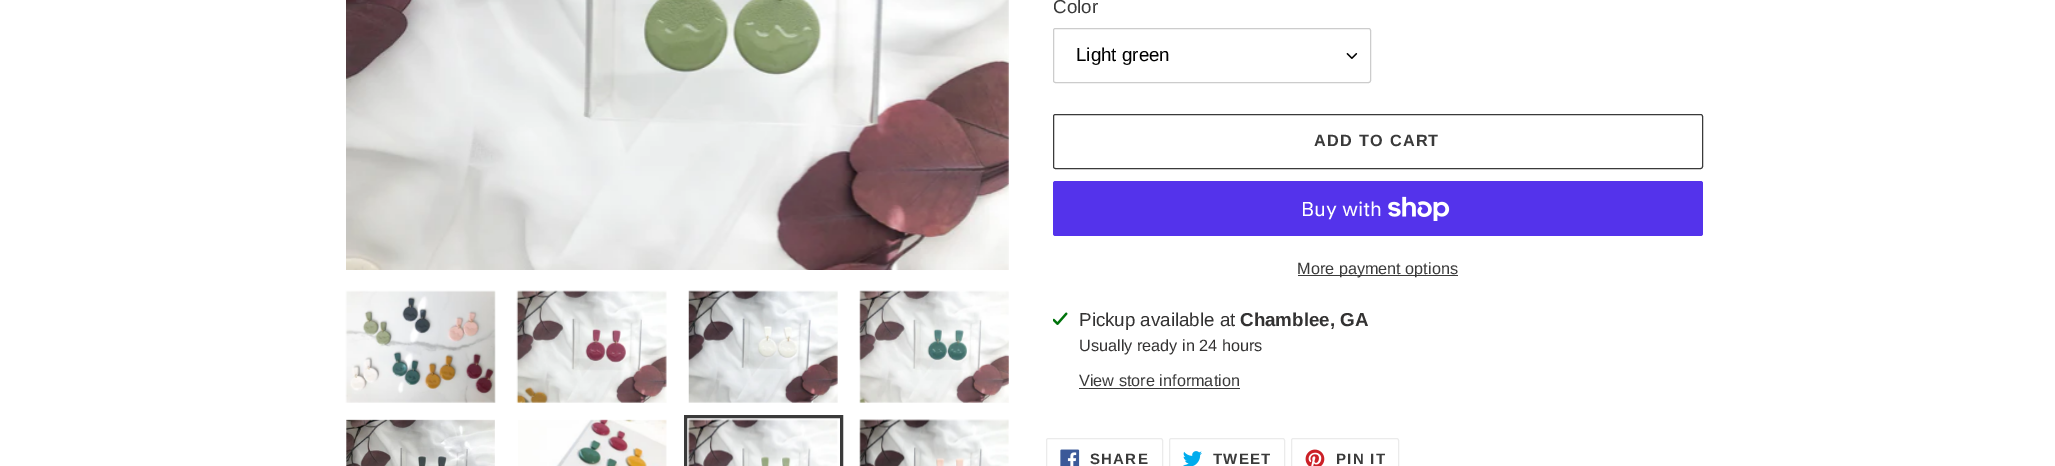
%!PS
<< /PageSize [2055 466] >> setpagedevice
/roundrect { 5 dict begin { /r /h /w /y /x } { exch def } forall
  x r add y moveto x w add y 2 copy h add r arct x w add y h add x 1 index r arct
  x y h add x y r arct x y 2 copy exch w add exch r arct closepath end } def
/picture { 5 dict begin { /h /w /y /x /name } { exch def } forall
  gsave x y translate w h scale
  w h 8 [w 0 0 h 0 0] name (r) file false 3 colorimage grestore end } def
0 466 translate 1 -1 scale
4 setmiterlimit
1 setgray
0 0 2055 466 rectfill
(img1.rgb) 346 0 663 270 picture
(img2.rgb) 345 290 151 113 picture
(img3.rgb) 516 290 151 113 picture
(img4.rgb) 688 290 150 113 picture
(img5.rgb) 859 290 150 113 picture
(img6.rgb) 346 419 149 47 picture
(img7.rgb) 518 419 149 47 picture
0.227 setgray
3 setlinewidth
685.5 416.5 156 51 rectstroke
(img8.rgb) 688 419 150 47 picture
(img9.rgb) 859 419 150 47 picture
/LiberationSans-Regular [18.75 0 0 -18.75 0 0] selectfont
1053 13 moveto (Color) show
(img10.rgb) 1346 53 12 6 picture
0.8 setgray
1 setlinewidth
1053.5 28.5 317 54 2 roundrect stroke
0 setgray
1076 61 moveto (Light green) show
0.227 setgray
1053.5 114.5 649 54 2 roundrect stroke
/LiberationSans-Bold [16.25 0 0 -16.25 0 0] selectfont
1314 146 moveto 1.25 0 (ADD TO CART) ashow
0.329 0.2 0.922 setrgbcolor
1053 181 650 55 2.5 roundrect fill
/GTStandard-Regular [20 0 0 -20 0 0] selectfont
1 setgray
1301 216 moveto (Buy with) show
(img11.rgb) 1388 196 62 25 picture
0.227 setgray
1298 275 160 1 rectfill
/LiberationSans-Regular [16.25 0 0 -16.25 0 0] selectfont
1297 274 moveto (More payment options) show
(img12.rgb) 1053 312 15 13 picture
/LiberationSans-Regular [18.75 0 0 -18.75 0 0] selectfont
0.2 0.196 0.196 setrgbcolor
1079 326 moveto (Pickup available at) show
/LiberationSans-Bold [18.75 0 0 -18.75 0 0] selectfont
1240 326 moveto (Chamblee, GA) show
/LiberationSans-Regular [16.25 0 0 -16.25 0 0] selectfont
1079 351 moveto (Usually ready in 24 hours) show
0.227 setgray
1079 386 moveto (View store information) show
1079 388 161 1 rectfill
0.922 setgray
1046.5 438.5 116 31 2 roundrect stroke
(img13.rgb) 1060 449 20 17 picture
/LiberationSans-Bold [15 0 0 -15 0 0] selectfont
0.227 setgray
1090 464 moveto 1.25 0 (SHARE) ashow
0.922 setgray
1169.5 438.5 115 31 2 roundrect stroke
(img14.rgb) 1183 451 19 15 picture
0.227 setgray
1213 464 moveto 1.25 0 (TWEET) ashow
0.922 setgray
1291.5 438.5 107 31 2 roundrect stroke
(img15.rgb) 1305 449 20 17 picture
0.227 setgray
1336 464 moveto 1.25 0 (PIN IT) ashow
showpage
